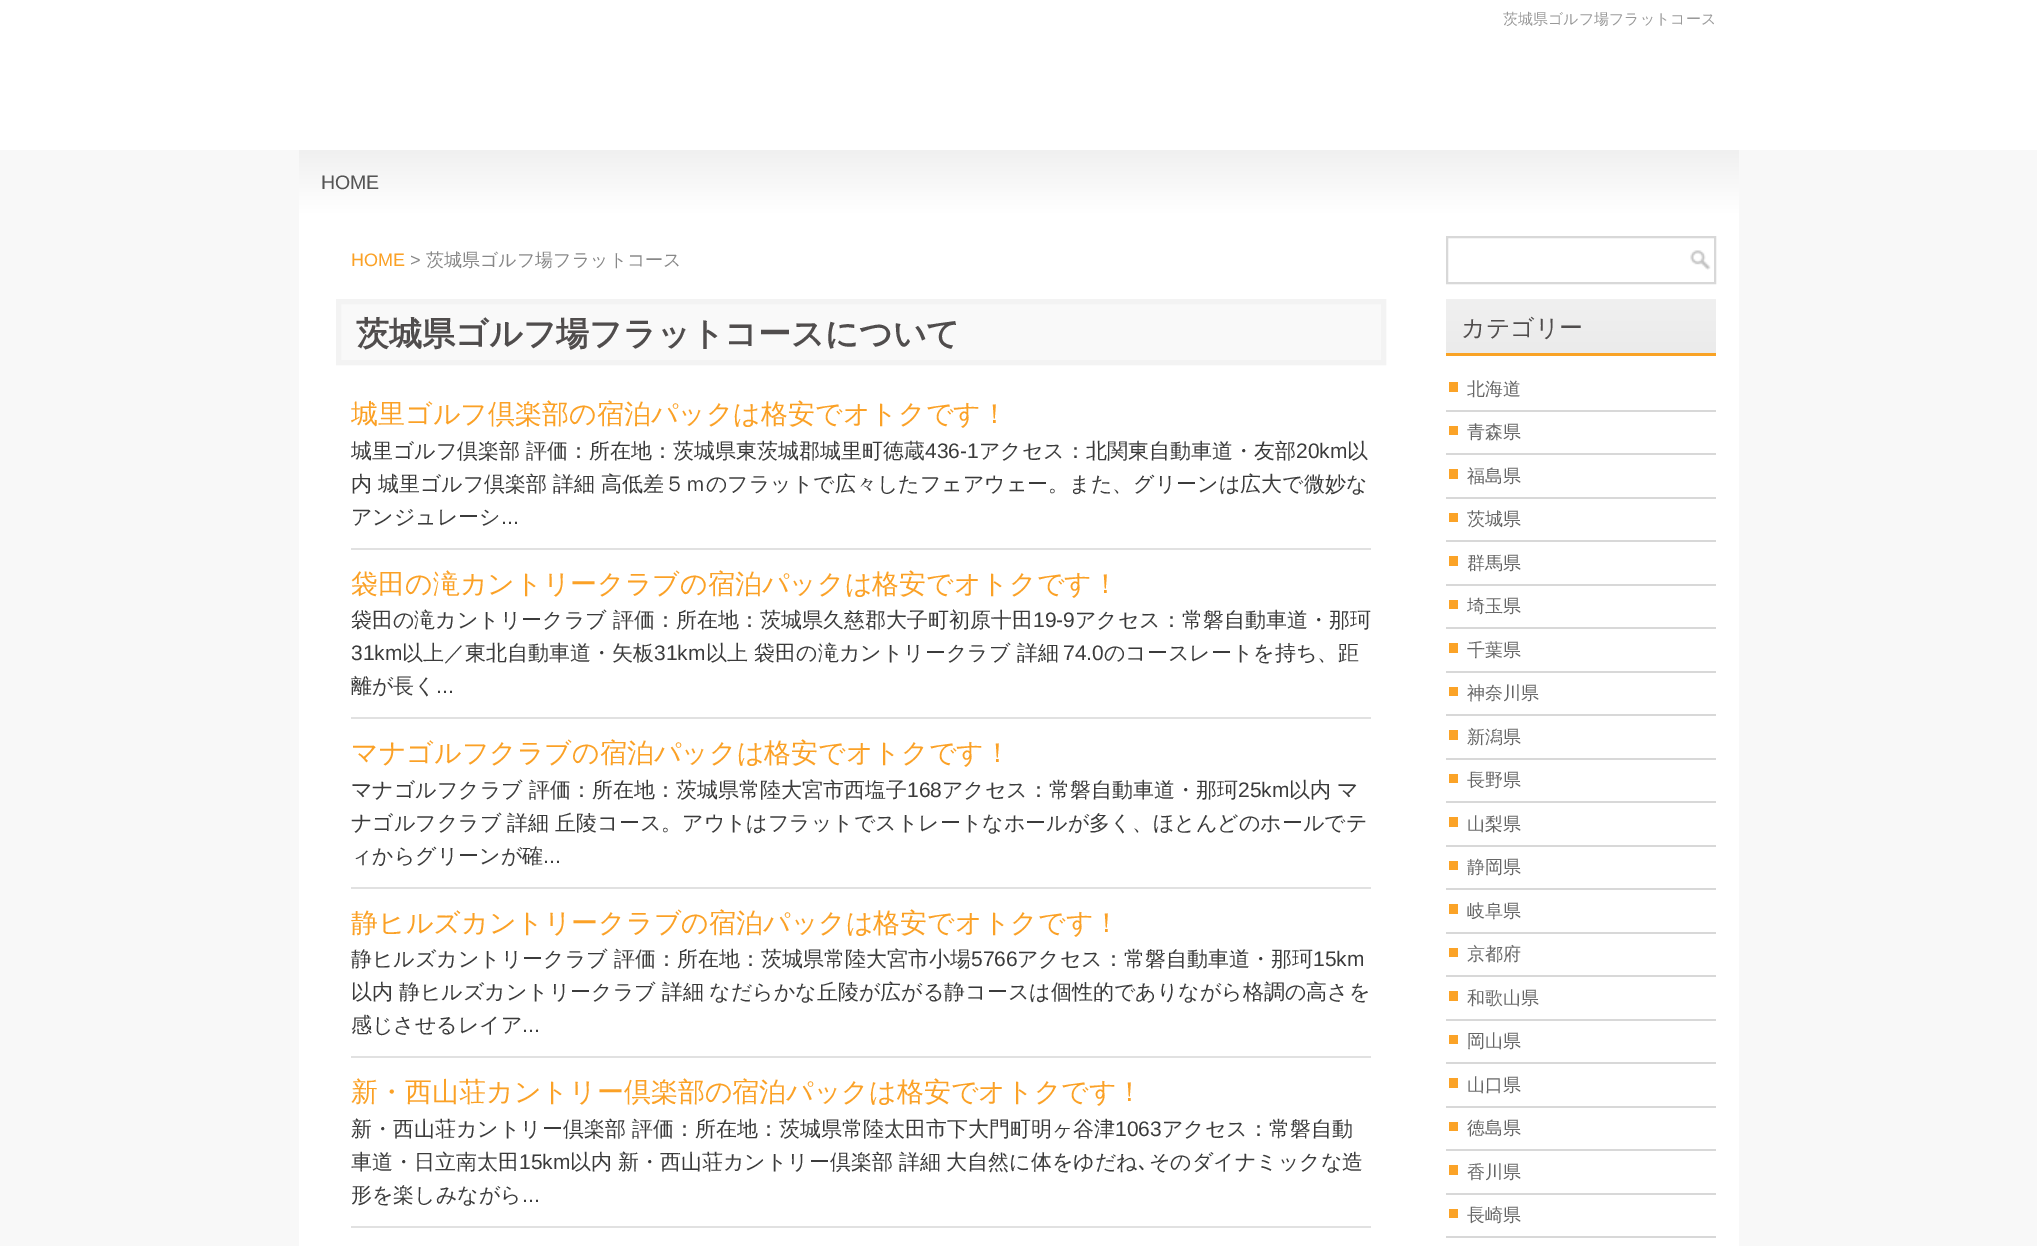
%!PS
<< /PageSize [2037 1246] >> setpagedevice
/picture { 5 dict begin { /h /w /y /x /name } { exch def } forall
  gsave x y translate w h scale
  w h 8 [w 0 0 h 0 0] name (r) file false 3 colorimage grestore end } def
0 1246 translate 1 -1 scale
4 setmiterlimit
0.973 setgray
0 0 2037 1246 rectfill
1 setgray
0 0 2037 150 rectfill
/WenQuanYiZenHei-Medium [15 0 0 -15 0 0] selectfont
0.6 setgray
1503 24 moveto (茨城県ゴルフ場フラットコース) show
gsave newpath 299 150 moveto 1739 150 lineto 1739 213 lineto 299 213 lineto closepath clip newpath
<< /ShadingType 2 /ColorSpace /DeviceRGB /Coords [1019 213 1019 150] /Extend [true true] /Function << /FunctionType 2 /Domain [0 1] /C0 [1 1 1] /C1 [0.941 0.941 0.941] /N 1 >> >> shfill grestore
/LiberationSans-Regular [19.5 0 0 -19.5 0 0] selectfont
0.333 setgray
321 189 moveto (HOME) show
1 setgray
299 213 1440 1033 rectfill
/LiberationSans-Regular [18 0 0 -18 0 0] selectfont
0.984 0.631 0.149 setrgbcolor
351 266 moveto (HOME) show
0.533 setgray
410 266 moveto (>) show
/WenQuanYiZenHei-Medium [18 0 0 -18 0 0] selectfont
426 266 moveto (茨城県ゴルフ場フラットコース) show
0.976 setgray
newpath 338.5 301.5 moveto 1383.5 301.5 lineto 1383.5 362.5 lineto 338.5 362.5 lineto closepath gsave fill grestore
0.953 setgray
5 setlinewidth
stroke
/WenQuanYiZenHei-Bold [33 0 0 -33 0 0] selectfont
0.314 0.302 0.302 setrgbcolor
356 345 moveto (茨城県ゴルフ場フラットコースについて) show
0.882 setgray
351 548 1020 2 rectfill
/WenQuanYiZenHei-Medium [27 0 0 -27 0 0] selectfont
0.984 0.631 0.149 setrgbcolor
351 423 moveto (城里ゴルフ倶楽部の宿泊パックは格安でオトクです！) show
/WenQuanYiZenHei-Medium [21 0 0 -21 0 0] selectfont
0.231 setgray
351 458 moveto -0.5 0 32 (城里ゴルフ倶楽部 評価：所在地：茨城県東茨城郡城里町徳蔵) widthshow
/LiberationSans-Regular [21 0 0 -21 0 0] selectfont
925 458 moveto (436-1) show
/WenQuanYiZenHei-Medium [21 0 0 -21 0 0] selectfont
979 458 moveto (アクセス：北関東自動車道・友部) show
/LiberationSans-Regular [21 0 0 -21 0 0] selectfont
1296 458 moveto (20km) show
/WenQuanYiZenHei-Medium [21 0 0 -21 0 0] selectfont
1347 458 moveto (以) show
351 491 moveto -0.5 0 32 (内 城里ゴルフ倶楽部 詳細 高低差５ｍのフラットで広々したフェアウェー。また、グリーンは広大で微妙な) widthshow
351 524 moveto (アンジュレーシ) show
/LiberationSans-Regular [21 0 0 -21 0 0] selectfont
501 524 moveto (...) show
0.882 setgray
351 717 1020 2 rectfill
/WenQuanYiZenHei-Medium [27 0 0 -27 0 0] selectfont
0.984 0.631 0.149 setrgbcolor
351 593 moveto (袋田の滝カントリークラブの宿泊パックは格安でオトクです！) show
/WenQuanYiZenHei-Medium [21 0 0 -21 0 0] selectfont
0.231 setgray
351 627 moveto -0.5 0 32 (袋田の滝カントリークラブ 評価：所在地：茨城県久慈郡大子町初原十田) widthshow
/LiberationSans-Regular [21 0 0 -21 0 0] selectfont
1033 627 moveto (19-9) show
/WenQuanYiZenHei-Medium [21 0 0 -21 0 0] selectfont
1075 627 moveto (アクセス：常磐自動車道・那珂) show
/LiberationSans-Regular [21 0 0 -21 0 0] selectfont
351 660 moveto (31km) show
/WenQuanYiZenHei-Medium [21 0 0 -21 0 0] selectfont
402 660 moveto (以上／東北自動車道・矢板) show
/LiberationSans-Regular [21 0 0 -21 0 0] selectfont
654 660 moveto (31km) show
/WenQuanYiZenHei-Medium [21 0 0 -21 0 0] selectfont
706 660 moveto (以上 袋田の滝カントリークラブ 詳細) show
/LiberationSans-Regular [21 0 0 -21 0 0] selectfont
1063 660 moveto (74.0) show
/WenQuanYiZenHei-Medium [21 0 0 -21 0 0] selectfont
1104 660 moveto (のコースレートを持ち、距) show
351 693 moveto (離が長く) show
/LiberationSans-Regular [21 0 0 -21 0 0] selectfont
436 693 moveto (...) show
0.882 setgray
351 887 1020 2 rectfill
/WenQuanYiZenHei-Medium [27 0 0 -27 0 0] selectfont
0.984 0.631 0.149 setrgbcolor
351 762 moveto (マナゴルフクラブの宿泊パックは格安でオトクです！) show
/WenQuanYiZenHei-Medium [21 0 0 -21 0 0] selectfont
0.231 setgray
351 797 moveto -0.5 0 32 (マナゴルフクラブ 評価：所在地：茨城県常陸大宮市西塩子) widthshow
/LiberationSans-Regular [21 0 0 -21 0 0] selectfont
907 797 moveto (168) show
/WenQuanYiZenHei-Medium [21 0 0 -21 0 0] selectfont
942 797 moveto (アクセス：常磐自動車道・那珂) show
/LiberationSans-Regular [21 0 0 -21 0 0] selectfont
1238 797 moveto (25km) show
/WenQuanYiZenHei-Medium [21 0 0 -21 0 0] selectfont
1289 797 moveto -0.5 0 32 (以内 マ) widthshow
351 830 moveto -0.5 0 32 (ナゴルフクラブ 詳細 丘陵コース。アウトはフラットでストレートなホールが多く、ほとんどのホールでテ) widthshow
351 863 moveto (ィからグリーンが確) show
/LiberationSans-Regular [21 0 0 -21 0 0] selectfont
543 863 moveto (...) show
0.882 setgray
351 1056 1020 2 rectfill
/WenQuanYiZenHei-Medium [27 0 0 -27 0 0] selectfont
0.984 0.631 0.149 setrgbcolor
351 932 moveto (静ヒルズカントリークラブの宿泊パックは格安でオトクです！) show
/WenQuanYiZenHei-Medium [21 0 0 -21 0 0] selectfont
0.231 setgray
351 966 moveto -0.5 0 32 (静ヒルズカントリークラブ 評価：所在地：茨城県常陸大宮市小場) widthshow
/LiberationSans-Regular [21 0 0 -21 0 0] selectfont
971 966 moveto (5766) show
/WenQuanYiZenHei-Medium [21 0 0 -21 0 0] selectfont
1017 966 moveto (アクセス：常磐自動車道・那珂) show
/LiberationSans-Regular [21 0 0 -21 0 0] selectfont
1313 966 moveto (15km) show
/WenQuanYiZenHei-Medium [21 0 0 -21 0 0] selectfont
351 999 moveto -0.5 0 32 (以内 静ヒルズカントリークラブ 詳細 なだらかな丘陵が広がる静コースは個性的でありながら格調の高さを) widthshow
351 1032 moveto (感じさせるレイア) show
/LiberationSans-Regular [21 0 0 -21 0 0] selectfont
522 1032 moveto (...) show
0.882 setgray
351 1226 1020 2 rectfill
/WenQuanYiZenHei-Medium [27 0 0 -27 0 0] selectfont
0.984 0.631 0.149 setrgbcolor
351 1101 moveto (新・西山荘カントリー倶楽部の宿泊パックは格安でオトクです！) show
/WenQuanYiZenHei-Medium [21 0 0 -21 0 0] selectfont
0.231 setgray
351 1136 moveto -0.5 0 32 (新・西山荘カントリー倶楽部 評価：所在地：茨城県常陸太田市下大門町明ヶ谷津) widthshow
/LiberationSans-Regular [21 0 0 -21 0 0] selectfont
1115 1136 moveto (1063) show
/WenQuanYiZenHei-Medium [21 0 0 -21 0 0] selectfont
1162 1136 moveto (アクセス：常磐自動) show
351 1169 moveto (車道・日立南太田) show
/LiberationSans-Regular [21 0 0 -21 0 0] selectfont
519 1169 moveto (15km) show
/WenQuanYiZenHei-Medium [21 0 0 -21 0 0] selectfont
570 1169 moveto -0.5 0 32 (以内 新・西山荘カントリー倶楽部 詳細 大自然に体をゆだね) widthshow
/IPAPGothic-Regular [21 0 0 -21 0 0] selectfont
1138 1169 moveto (､) show
/WenQuanYiZenHei-Medium [21 0 0 -21 0 0] selectfont
1149 1169 moveto (そのダイナミックな造) show
351 1202 moveto (形を楽しみながら) show
/LiberationSans-Regular [21 0 0 -21 0 0] selectfont
522 1202 moveto (...) show
(img1.rgb) 1690 250 21 20 picture
0.847 setgray
2 setlinewidth
1447 237 268 46 rectstroke
0.976 0.639 0.145 setrgbcolor
1446 353 270 3 rectfill
gsave newpath 1446 299 moveto 1716 299 lineto 1716 353 lineto 1446 353 lineto closepath clip newpath
<< /ShadingType 2 /ColorSpace /DeviceRGB /Coords [1581 353 1581 299] /Extend [true true] /Function << /FunctionType 2 /Domain [0 1] /C0 [0.922 0.922 0.922] /C1 [0.941 0.941 0.941] /N 1 >> >> shfill grestore
/WenQuanYiZenHei-Medium [24 0 0 -24 0 0] selectfont
0.314 0.302 0.302 setrgbcolor
1461 336 moveto (カテゴリー) show
0.984 0.639 0.153 setrgbcolor
1449 382 9 10 rectfill
0.847 setgray
1446 410 270 2 rectfill
/WenQuanYiZenHei-Medium [18 0 0 -18 0 0] selectfont
0.4 setgray
1467 395 moveto (北海道) show
0.984 0.639 0.153 setrgbcolor
1449 426 9 9 rectfill
0.847 setgray
1446 453 270 2 rectfill
0.4 setgray
1467 438 moveto (青森県) show
0.984 0.639 0.153 setrgbcolor
1449 469 9 10 rectfill
0.847 setgray
1446 497 270 2 rectfill
0.4 setgray
1467 482 moveto (福島県) show
0.984 0.639 0.153 setrgbcolor
1449 513 9 9 rectfill
0.847 setgray
1446 540 270 2 rectfill
0.4 setgray
1467 525 moveto (茨城県) show
0.984 0.639 0.153 setrgbcolor
1449 556 9 10 rectfill
0.847 setgray
1446 584 270 2 rectfill
0.4 setgray
1467 569 moveto (群馬県) show
0.984 0.639 0.153 setrgbcolor
1449 600 9 9 rectfill
0.847 setgray
1446 627 270 2 rectfill
0.4 setgray
1467 612 moveto (埼玉県) show
0.984 0.639 0.153 setrgbcolor
1449 643 9 10 rectfill
0.847 setgray
1446 671 270 2 rectfill
0.4 setgray
1467 656 moveto (千葉県) show
0.984 0.639 0.153 setrgbcolor
1449 687 9 9 rectfill
0.847 setgray
1446 714 270 2 rectfill
0.4 setgray
1467 699 moveto (神奈川県) show
0.984 0.639 0.153 setrgbcolor
1449 730 9 10 rectfill
0.847 setgray
1446 758 270 2 rectfill
0.4 setgray
1467 743 moveto (新潟県) show
0.984 0.639 0.153 setrgbcolor
1449 774 9 9 rectfill
0.847 setgray
1446 801 270 2 rectfill
0.4 setgray
1467 786 moveto (長野県) show
0.984 0.639 0.153 setrgbcolor
1449 817 9 10 rectfill
0.847 setgray
1446 845 270 2 rectfill
0.4 setgray
1467 830 moveto (山梨県) show
0.984 0.639 0.153 setrgbcolor
1449 861 9 9 rectfill
0.847 setgray
1446 888 270 2 rectfill
0.4 setgray
1467 873 moveto (静岡県) show
0.984 0.639 0.153 setrgbcolor
1449 904 9 10 rectfill
0.847 setgray
1446 932 270 2 rectfill
0.4 setgray
1467 917 moveto (岐阜県) show
0.984 0.639 0.153 setrgbcolor
1449 948 9 9 rectfill
0.847 setgray
1446 975 270 2 rectfill
0.4 setgray
1467 960 moveto (京都府) show
0.984 0.639 0.153 setrgbcolor
1449 991 9 10 rectfill
0.847 setgray
1446 1019 270 2 rectfill
0.4 setgray
1467 1004 moveto (和歌山県) show
0.984 0.639 0.153 setrgbcolor
1449 1035 9 9 rectfill
0.847 setgray
1446 1062 270 2 rectfill
0.4 setgray
1467 1047 moveto (岡山県) show
0.984 0.639 0.153 setrgbcolor
1449 1078 9 10 rectfill
0.847 setgray
1446 1106 270 2 rectfill
0.4 setgray
1467 1091 moveto (山口県) show
0.984 0.639 0.153 setrgbcolor
1449 1122 9 9 rectfill
0.847 setgray
1446 1149 270 2 rectfill
0.4 setgray
1467 1134 moveto (徳島県) show
0.984 0.639 0.153 setrgbcolor
1449 1165 9 10 rectfill
0.847 setgray
1446 1193 270 2 rectfill
0.4 setgray
1467 1178 moveto (香川県) show
0.984 0.639 0.153 setrgbcolor
1449 1209 9 9 rectfill
0.847 setgray
1446 1236 270 2 rectfill
0.4 setgray
1467 1221 moveto (長崎県) show
showpage
